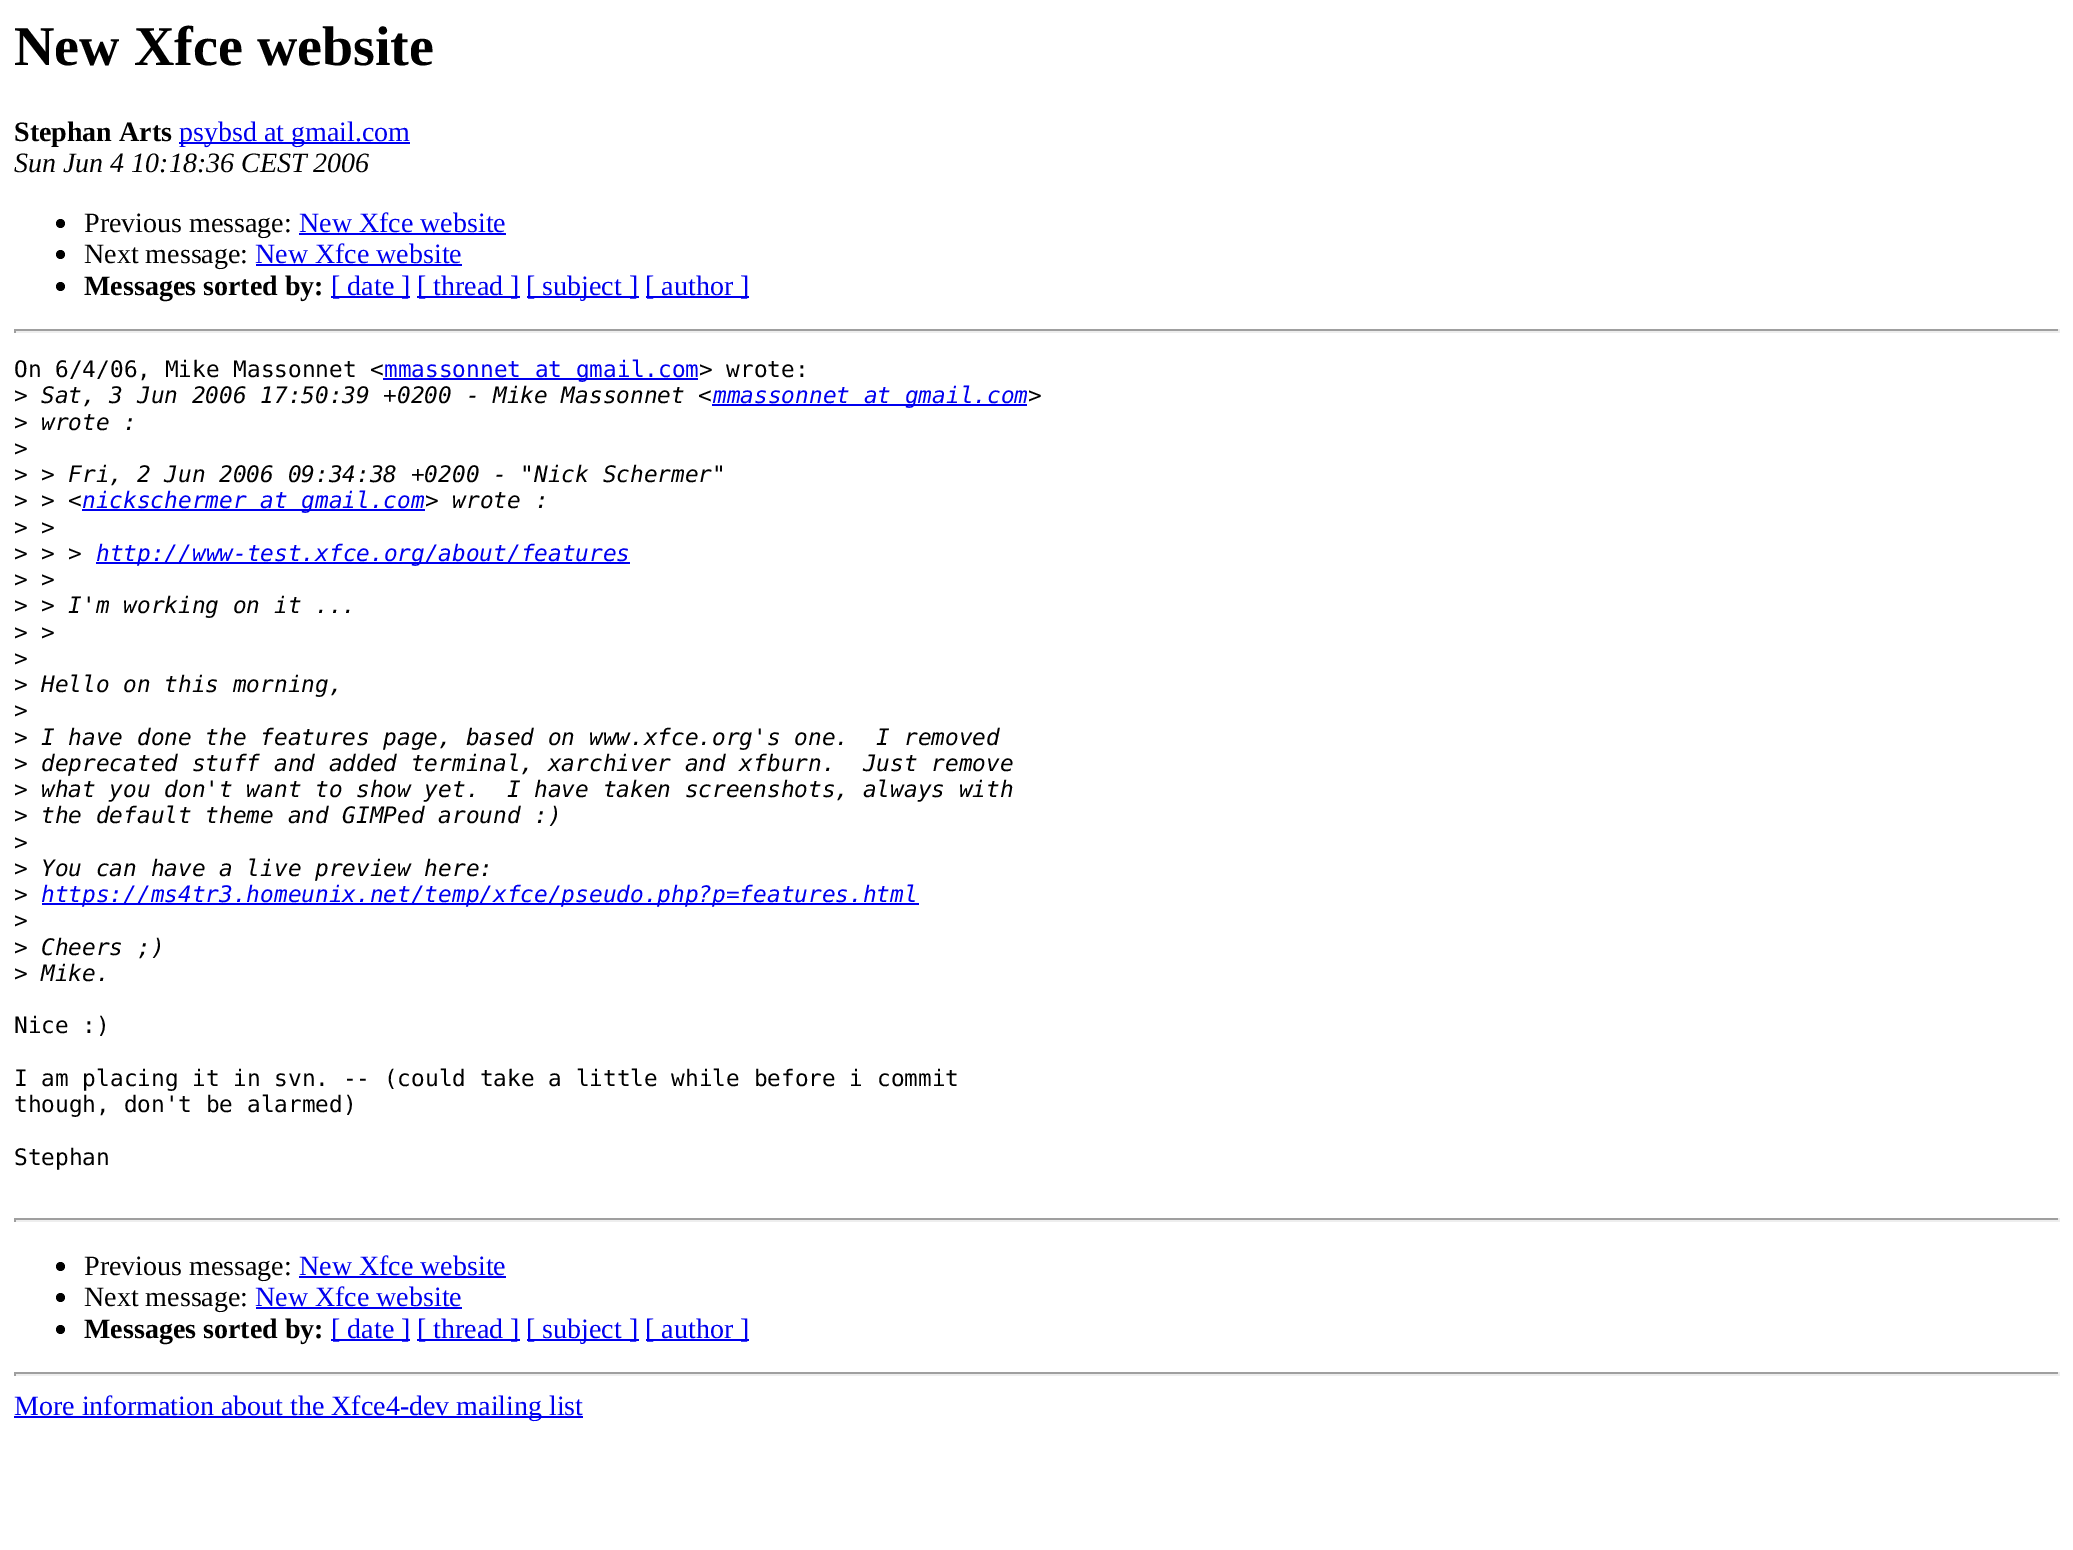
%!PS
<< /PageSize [2073 1550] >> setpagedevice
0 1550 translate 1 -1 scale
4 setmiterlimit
1 setgray
0 0 2073 1550 rectfill
/LiberationSerif-Bold [56 0 0 -56 0 0] selectfont
0 setgray
14 65 moveto (New Xfce website) show
/LiberationSerif-Bold [28 0 0 -28 0 0] selectfont
14 141 moveto (Stephan Arts) show
0 0 0.933 setrgbcolor
179 142 231 2 rectfill
/LiberationSerif-Regular [28 0 0 -28 0 0] selectfont
179 141 moveto (psybsd at gmail.com) show
/LiberationSerif-Italic [28 0 0 -28 0 0] selectfont
0 setgray
14 172 moveto (Sun Jun 4 10:18:36 CEST 2006) show
newpath 60.5 223.5 4.5 0 360 arc closepath fill
/LiberationSerif-Regular [28 0 0 -28 0 0] selectfont
84 232 moveto (Previous message:) show
0 0 0.933 setrgbcolor
299 232 moveto (New Xfce website) show
299 233 207 2 rectfill
0 setgray
newpath 60.5 254.5 4.5 0 360 arc closepath fill
84 263 moveto (Next message:) show
0 0 0.933 setrgbcolor
255 263 moveto (New Xfce website) show
256 264 206 2 rectfill
0 setgray
newpath 60.5 286.5 4.5 0 360 arc closepath fill
/LiberationSerif-Bold [28 0 0 -28 0 0] selectfont
84 295 moveto (Messages sorted by:) show
0 0 0.933 setrgbcolor
331 296 79 2 rectfill
/LiberationSerif-Regular [28 0 0 -28 0 0] selectfont
331 295 moveto ([ date ]) show
417 296 103 2 rectfill
417 295 moveto ([ thread ]) show
527 296 112 2 rectfill
526 295 moveto ([ subject ]) show
646 296 103 2 rectfill
645 295 moveto ([ author ]) show
0.624 setgray
14 329 2046 2 rectfill
0.933 setgray
2058 329 2 4 rectfill
14 331 2046 2 rectfill
0.624 setgray
14 329 2 4 rectfill
/DejaVuSansMono-Regular [22.75 0 0 -22.75 0 0] selectfont
0 setgray
14 377 moveto (On 6/4/06, Mike Massonnet <) show
0 0 0.933 setrgbcolor
383 378 315 2 rectfill
384 377 moveto (mmassonnet at gmail.com) show
0 setgray
699 377 moveto (> wrote:) show
14 403 moveto (>) show
/DejaVuSansMono-Italic [22.75 0 0 -22.75 0 0] selectfont
41 403 moveto (Sat, 3 Jun 2006 17:50:39 +0200 - Mike Massonnet <) show
0 0 0.933 setrgbcolor
712 404 315 2 rectfill
713 403 moveto (mmassonnet at gmail.com) show
0 setgray
1028 403 moveto (>) show
/DejaVuSansMono-Regular [22.75 0 0 -22.75 0 0] selectfont
14 430 moveto (>) show
/DejaVuSansMono-Italic [22.75 0 0 -22.75 0 0] selectfont
41 430 moveto (wrote :) show
/DejaVuSansMono-Regular [22.75 0 0 -22.75 0 0] selectfont
14 456 moveto (>) show
14 482 moveto (>) show
/DejaVuSansMono-Italic [22.75 0 0 -22.75 0 0] selectfont
41 482 moveto (> Fri, 2 Jun 2006 09:34:38 +0200 - "Nick Schermer") show
/DejaVuSansMono-Regular [22.75 0 0 -22.75 0 0] selectfont
14 508 moveto (>) show
/DejaVuSansMono-Italic [22.75 0 0 -22.75 0 0] selectfont
41 508 moveto (> <) show
0 0 0.933 setrgbcolor
82 509 343 2 rectfill
82 508 moveto (nickschermer at gmail.com) show
0 setgray
425 508 moveto (> wrote :) show
/DejaVuSansMono-Regular [22.75 0 0 -22.75 0 0] selectfont
14 535 moveto (>) show
/DejaVuSansMono-Italic [22.75 0 0 -22.75 0 0] selectfont
41 535 moveto (>) show
/DejaVuSansMono-Regular [22.75 0 0 -22.75 0 0] selectfont
14 561 moveto (>) show
/DejaVuSansMono-Italic [22.75 0 0 -22.75 0 0] selectfont
41 561 moveto (> >) show
0 0 0.933 setrgbcolor
96 562 534 2 rectfill
96 561 moveto (http://www-test.xfce.org/about/features) show
/DejaVuSansMono-Regular [22.75 0 0 -22.75 0 0] selectfont
0 setgray
14 587 moveto (>) show
/DejaVuSansMono-Italic [22.75 0 0 -22.75 0 0] selectfont
41 587 moveto (>) show
/DejaVuSansMono-Regular [22.75 0 0 -22.75 0 0] selectfont
14 613 moveto (>) show
/DejaVuSansMono-Italic [22.75 0 0 -22.75 0 0] selectfont
41 613 moveto (> I'm working on it ...) show
/DejaVuSansMono-Regular [22.75 0 0 -22.75 0 0] selectfont
14 640 moveto (>) show
/DejaVuSansMono-Italic [22.75 0 0 -22.75 0 0] selectfont
41 640 moveto (>) show
/DejaVuSansMono-Regular [22.75 0 0 -22.75 0 0] selectfont
14 666 moveto (>) show
14 692 moveto (>) show
/DejaVuSansMono-Italic [22.75 0 0 -22.75 0 0] selectfont
41 692 moveto (Hello on this morning,) show
/DejaVuSansMono-Regular [22.75 0 0 -22.75 0 0] selectfont
14 718 moveto (>) show
14 745 moveto (>) show
/DejaVuSansMono-Italic [22.75 0 0 -22.75 0 0] selectfont
41 745 moveto (I have done the features page, based on www.xfce.org's one.  I removed) show
/DejaVuSansMono-Regular [22.75 0 0 -22.75 0 0] selectfont
14 771 moveto (>) show
/DejaVuSansMono-Italic [22.75 0 0 -22.75 0 0] selectfont
41 771 moveto (deprecated stuff and added terminal, xarchiver and xfburn.  Just remove) show
/DejaVuSansMono-Regular [22.75 0 0 -22.75 0 0] selectfont
14 797 moveto (>) show
/DejaVuSansMono-Italic [22.75 0 0 -22.75 0 0] selectfont
41 797 moveto (what you don't want to show yet.  I have taken screenshots, always with) show
/DejaVuSansMono-Regular [22.75 0 0 -22.75 0 0] selectfont
14 823 moveto (>) show
/DejaVuSansMono-Italic [22.75 0 0 -22.75 0 0] selectfont
41 823 moveto (the default theme and GIMPed around :\)) show
/DejaVuSansMono-Regular [22.75 0 0 -22.75 0 0] selectfont
14 850 moveto (>) show
14 876 moveto (>) show
/DejaVuSansMono-Italic [22.75 0 0 -22.75 0 0] selectfont
41 876 moveto (You can have a live preview here:) show
/DejaVuSansMono-Regular [22.75 0 0 -22.75 0 0] selectfont
14 902 moveto (>) show
0 0 0.933 setrgbcolor
42 903 877 2 rectfill
/DejaVuSansMono-Italic [22.75 0 0 -22.75 0 0] selectfont
41 902 moveto (https://ms4tr3.homeunix.net/temp/xfce/pseudo.php?p=features.html) show
/DejaVuSansMono-Regular [22.75 0 0 -22.75 0 0] selectfont
0 setgray
14 928 moveto (>) show
14 955 moveto (>) show
/DejaVuSansMono-Italic [22.75 0 0 -22.75 0 0] selectfont
41 955 moveto (Cheers ;\)) show
/DejaVuSansMono-Regular [22.75 0 0 -22.75 0 0] selectfont
14 981 moveto (>) show
/DejaVuSansMono-Italic [22.75 0 0 -22.75 0 0] selectfont
41 981 moveto (Mike.) show
/DejaVuSansMono-Regular [22.75 0 0 -22.75 0 0] selectfont
14 1033 moveto (Nice :\)) show
14 1086 moveto (I am placing it in svn. -- \(could take a little while before i commit) show
14 1112 moveto (though, don't be alarmed\)) show
14 1165 moveto (Stephan) show
0.624 setgray
14 1218 2046 2 rectfill
0.933 setgray
2058 1218 2 4 rectfill
14 1220 2046 2 rectfill
0.624 setgray
14 1218 2 4 rectfill
0 setgray
newpath 60.5 1266.5 4.5 0 360 arc closepath fill
/LiberationSerif-Regular [28 0 0 -28 0 0] selectfont
84 1275 moveto (Previous message:) show
0 0 0.933 setrgbcolor
299 1275 moveto (New Xfce website) show
299 1276 207 2 rectfill
0 setgray
newpath 60.5 1297.5 4.5 0 360 arc closepath fill
84 1306 moveto (Next message:) show
0 0 0.933 setrgbcolor
255 1306 moveto (New Xfce website) show
256 1307 206 2 rectfill
0 setgray
newpath 60.5 1329.5 4.5 0 360 arc closepath fill
/LiberationSerif-Bold [28 0 0 -28 0 0] selectfont
84 1338 moveto (Messages sorted by:) show
0 0 0.933 setrgbcolor
331 1339 79 2 rectfill
/LiberationSerif-Regular [28 0 0 -28 0 0] selectfont
331 1338 moveto ([ date ]) show
417 1339 103 2 rectfill
417 1338 moveto ([ thread ]) show
527 1339 112 2 rectfill
526 1338 moveto ([ subject ]) show
646 1339 103 2 rectfill
645 1338 moveto ([ author ]) show
0.624 setgray
14 1372 2046 2 rectfill
0.933 setgray
2058 1372 2 4 rectfill
14 1374 2046 2 rectfill
0.624 setgray
14 1372 2 4 rectfill
0 0 0.933 setrgbcolor
14 1416 569 2 rectfill
14 1415 moveto (More information about the Xfce4-dev mailing list) show
showpage
